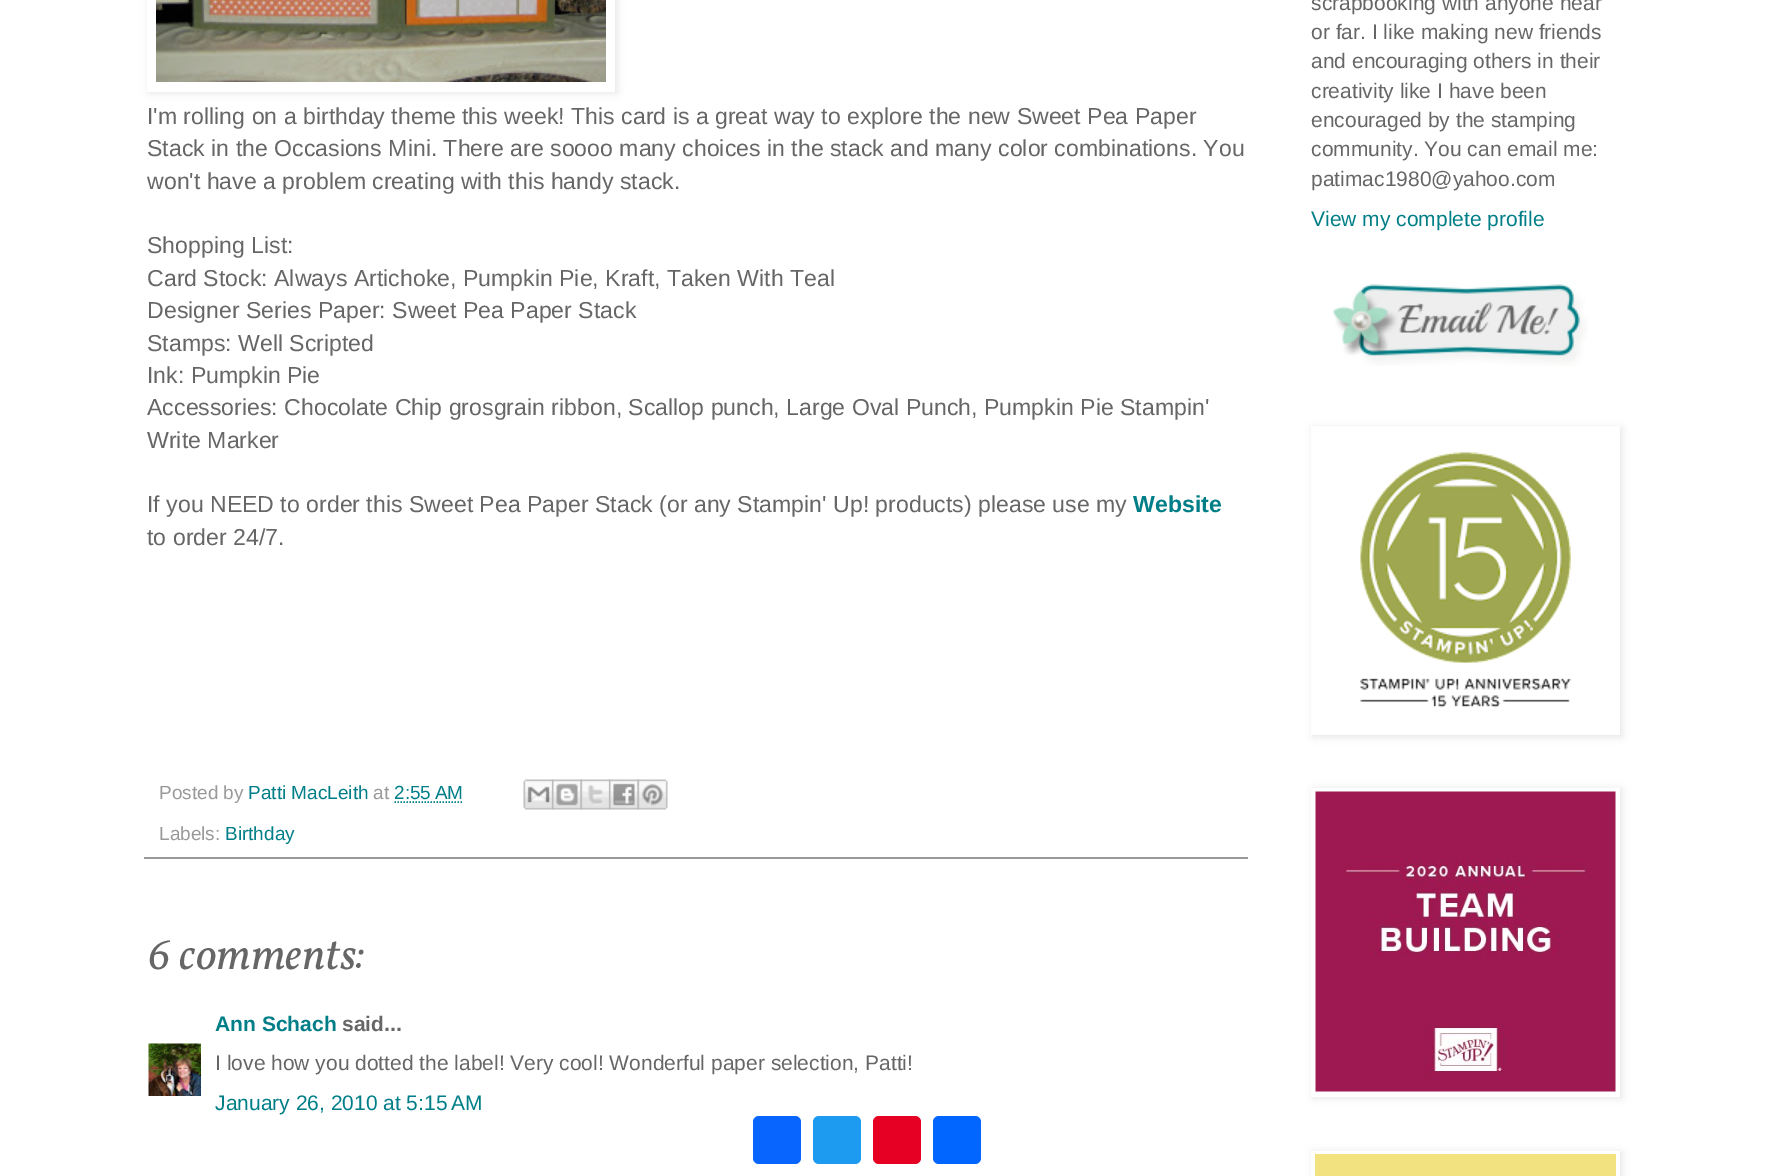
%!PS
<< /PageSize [1782 1176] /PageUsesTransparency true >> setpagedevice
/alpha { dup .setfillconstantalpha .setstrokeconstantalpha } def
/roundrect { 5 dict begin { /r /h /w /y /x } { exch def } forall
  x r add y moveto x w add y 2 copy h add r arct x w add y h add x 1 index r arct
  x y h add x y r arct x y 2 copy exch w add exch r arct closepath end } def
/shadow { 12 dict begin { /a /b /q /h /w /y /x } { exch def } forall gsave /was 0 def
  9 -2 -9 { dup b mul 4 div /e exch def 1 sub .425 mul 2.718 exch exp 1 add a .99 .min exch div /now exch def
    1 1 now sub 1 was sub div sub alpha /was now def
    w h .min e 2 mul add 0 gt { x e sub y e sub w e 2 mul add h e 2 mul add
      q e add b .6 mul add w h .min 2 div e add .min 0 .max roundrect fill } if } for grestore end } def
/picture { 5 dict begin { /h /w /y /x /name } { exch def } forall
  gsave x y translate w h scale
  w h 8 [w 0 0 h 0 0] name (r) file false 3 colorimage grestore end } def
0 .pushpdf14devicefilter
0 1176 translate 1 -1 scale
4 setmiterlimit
1 setgray
0 0 1782 1176 rectfill
0 setgray
149 -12 468 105 0 4 0.1 shadow
1 setgray
147 0 468 92 rectfill
(img1.rgb) 156 0 450 82 picture
/LiberationSans-Regular [23.1 0 0 -23.1 0 0] selectfont
0.4 setgray
147 124 moveto (I'm rolling on a birthday theme this week! This card is a great way to explore the new Sweet Pea Paper) show
147 156 moveto (Stack in the Occasions Mini. There are soooo many choices in the stack and many color combinations. You) show
147 189 moveto (won't have a problem creating with this handy stack.) show
147 253 moveto (Shopping List:) show
147 286 moveto (Card Stock: Always Artichoke, Pumpkin Pie, Kraft, Taken With Teal) show
147 318 moveto (Designer Series Paper: Sweet Pea Paper Stack) show
147 351 moveto (Stamps: Well Scripted) show
147 383 moveto (Ink: Pumpkin Pie) show
147 415 moveto (Accessories: Chocolate Chip grosgrain ribbon, Scallop punch, Large Oval Punch, Pumpkin Pie Stampin') show
147 448 moveto (Write Marker) show
147 512 moveto (If you NEED to order this Sweet Pea Paper Stack \(or any Stampin' Up! products\) please use my) show
/LiberationSans-Bold [23.1 0 0 -23.1 0 0] selectfont
0 0.494 0.529 setrgbcolor
1133 512 moveto (Website) show
/LiberationSans-Regular [23.1 0 0 -23.1 0 0] selectfont
0.4 setgray
147 545 moveto (to order 24/7.) show
0.6 setgray
144 857 1104 2 rectfill
/LiberationSans-Regular [19 0 0 -19 0 0] selectfont
159 799 moveto (Posted by) show
0 0.494 0.529 setrgbcolor
248 799 moveto (Patti MacLeith) show
0.6 setgray
373 799 moveto (at) show
0 0.494 0.529 setrgbcolor
394 799 moveto (2:55 AM) show
1.5 setlinewidth
[1.5 1.5] 0 setdash
newpath 394.5 802 moveto 463 802 lineto stroke
(img2.rgb) 523 779 31 31 picture
(img3.rgb) 552 779 30 31 picture
(img4.rgb) 580 779 31 31 picture
(img5.rgb) 609 779 30 31 picture
(img6.rgb) 637 779 31 31 picture
0.6 setgray
159 840 moveto (Labels:) show
0 0.494 0.529 setrgbcolor
225 840 moveto (Birthday) show
/Vollkorn-Italic [45 0 0 -45 0 0] selectfont
0.4 setgray
147 969 moveto (6 comments:) show
/LiberationSans-Bold [21 0 0 -21 0 0] selectfont
0 0.494 0.529 setrgbcolor
215 1031 moveto (Ann Schach) show
0.4 setgray
342 1031 moveto (said...) show
(img7.rgb) 148 1043 53 53 picture
/LiberationSans-Regular [21 0 0 -21 0 0] selectfont
215 1070 moveto (I love how you dotted the label! Very cool! Wonderful paper selection, Patti!) show
0 0.494 0.529 setrgbcolor
215 1110 moveto (January 26, 2010 at 5:15 AM) show
0.4 setgray
1311 10 moveto (scrapbooking with anyone near) show
1311 39 moveto (or far. I like making new friends) show
1311 68 moveto (and encouraging others in their) show
1311 98 moveto (creativity like I have been) show
1311 127 moveto (encouraged by the stamping) show
1311 156 moveto (community. You can email me:) show
1311 186 moveto (patimac1980@yahoo.com) show
0 0.494 0.529 setrgbcolor
1311 226 moveto (View my complete profile) show
(img8.rgb) 1333 284 255 82 picture
gsave
newpath 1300 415 moveto 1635 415 lineto 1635 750 lineto 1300 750 lineto closepath 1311 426 moveto 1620 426 lineto 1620 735 lineto 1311 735 lineto closepath eoclip newpath
0 setgray
1313 428 309 309 0 4 0.1 shadow
grestore
(img9.rgb) 1360 452 211 256 picture
0 setgray
1313 789 309 309 0 4 0.1 shadow
1 setgray
1311 788 309 309 rectfill
(img10.rgb) 1315 791 301 301 picture
0.031 0.4 1 setrgbcolor
753 1116 48 48 6 roundrect fill
0.114 0.608 0.941 setrgbcolor
813 1116 48 48 6 roundrect fill
0.902 0 0.137 setrgbcolor
873 1116 48 48 6 roundrect fill
0.004 0.4 1 setrgbcolor
933 1116 48 48 6 roundrect fill
gsave
newpath 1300 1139 moveto 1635 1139 lineto 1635 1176 lineto 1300 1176 lineto closepath 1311 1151 moveto 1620 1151 lineto 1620 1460 lineto 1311 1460 lineto closepath eoclip newpath
0 setgray
1313 1152 309 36 0 4 0.1 shadow
grestore
0.949 0.886 0.502 setrgbcolor
1315 1154 301 22 rectfill
.poppdf14devicefilter showpage
